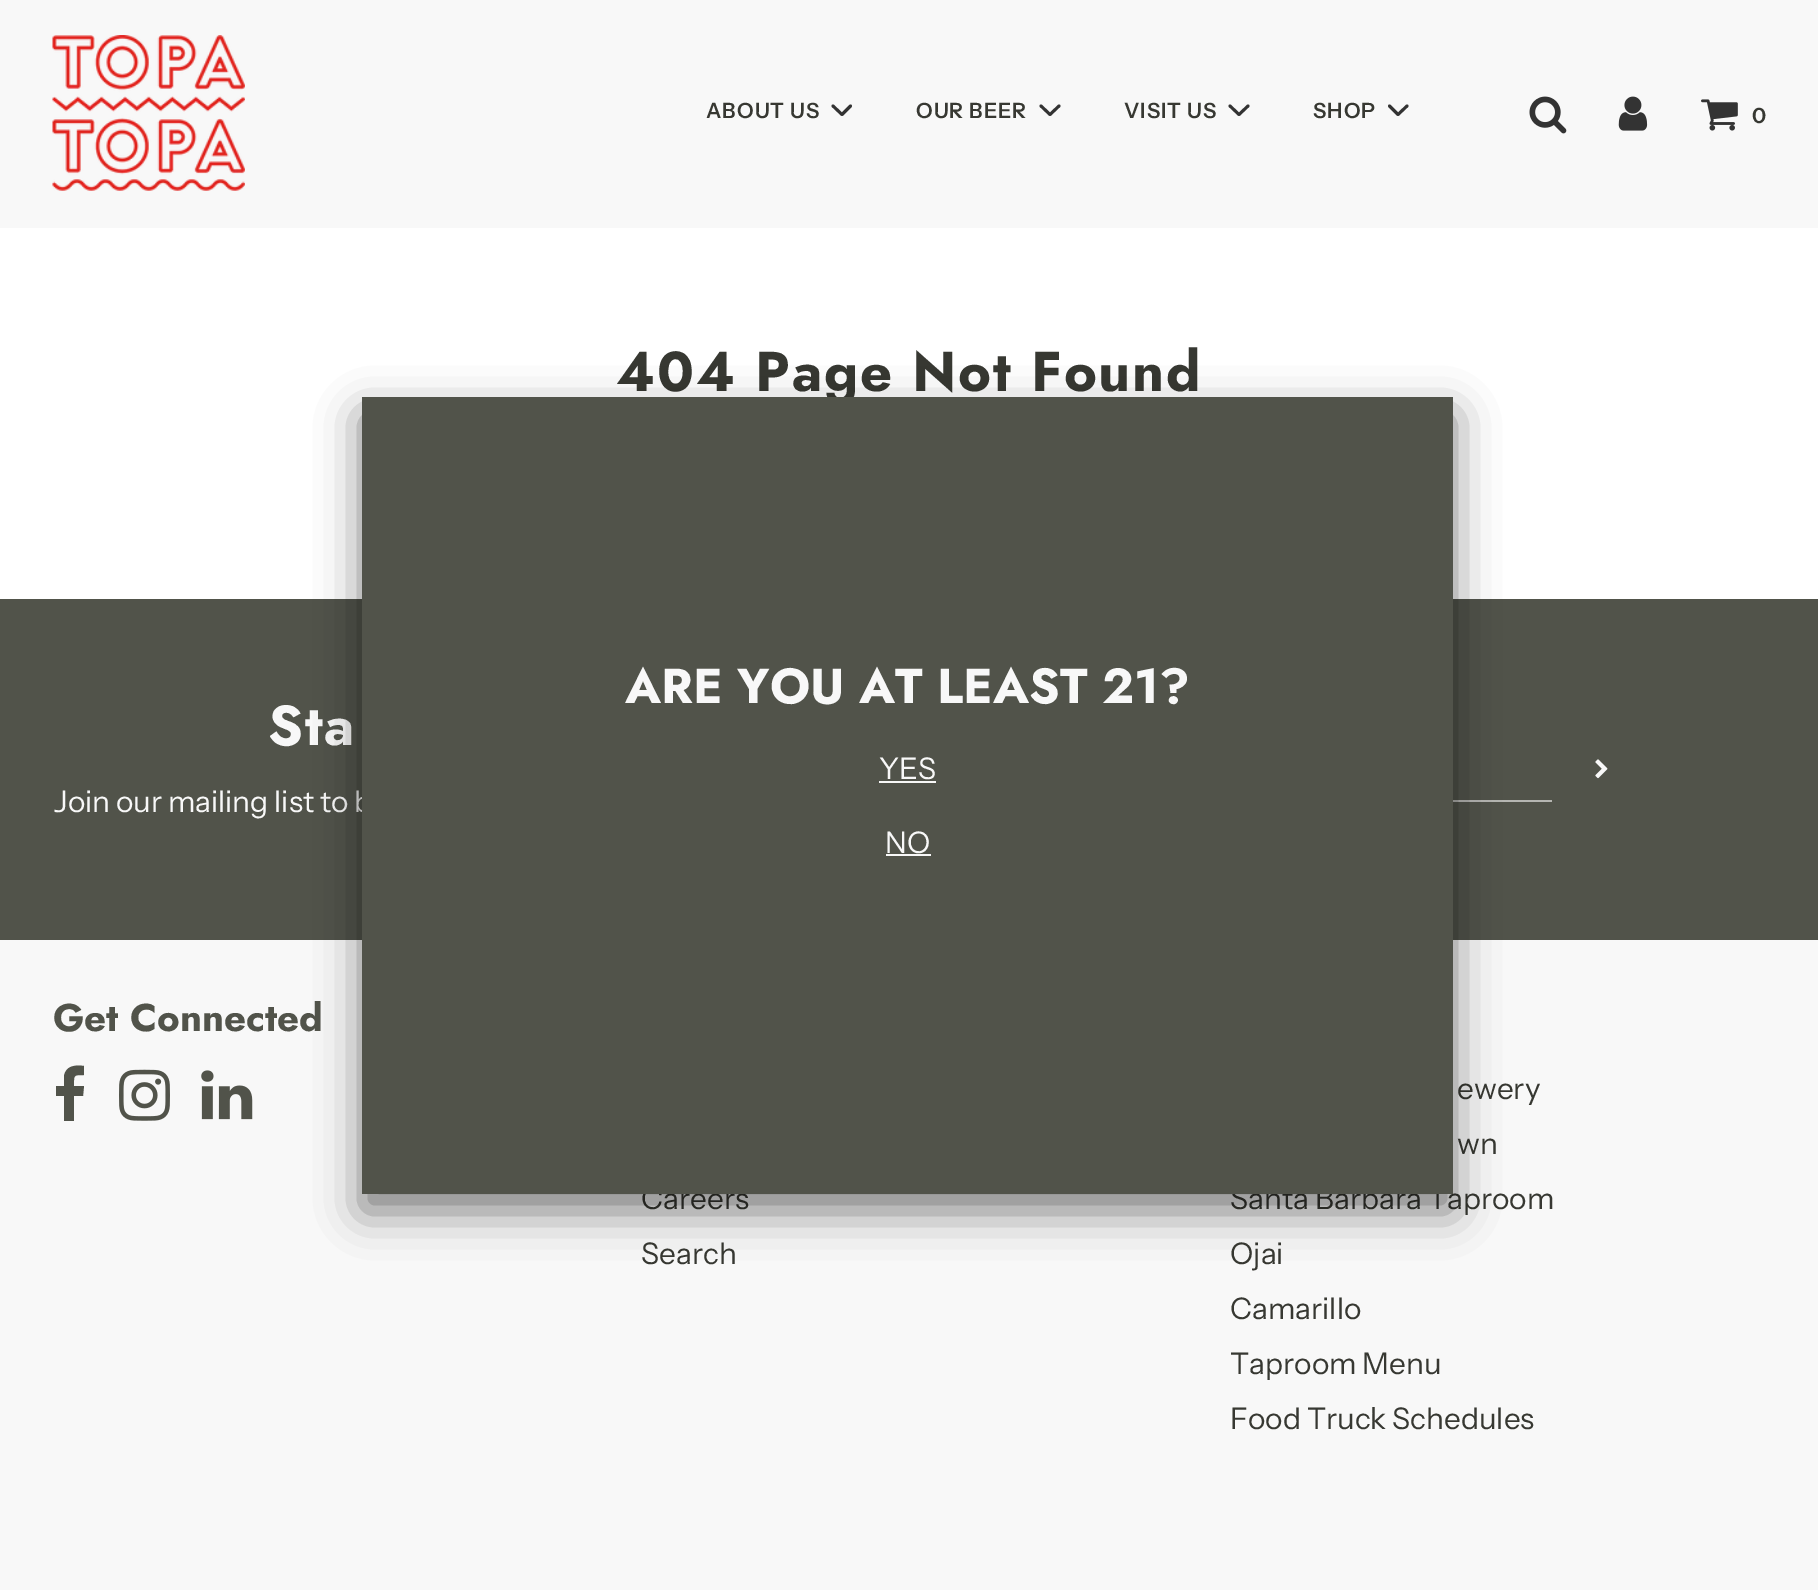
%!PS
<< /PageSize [1818 1590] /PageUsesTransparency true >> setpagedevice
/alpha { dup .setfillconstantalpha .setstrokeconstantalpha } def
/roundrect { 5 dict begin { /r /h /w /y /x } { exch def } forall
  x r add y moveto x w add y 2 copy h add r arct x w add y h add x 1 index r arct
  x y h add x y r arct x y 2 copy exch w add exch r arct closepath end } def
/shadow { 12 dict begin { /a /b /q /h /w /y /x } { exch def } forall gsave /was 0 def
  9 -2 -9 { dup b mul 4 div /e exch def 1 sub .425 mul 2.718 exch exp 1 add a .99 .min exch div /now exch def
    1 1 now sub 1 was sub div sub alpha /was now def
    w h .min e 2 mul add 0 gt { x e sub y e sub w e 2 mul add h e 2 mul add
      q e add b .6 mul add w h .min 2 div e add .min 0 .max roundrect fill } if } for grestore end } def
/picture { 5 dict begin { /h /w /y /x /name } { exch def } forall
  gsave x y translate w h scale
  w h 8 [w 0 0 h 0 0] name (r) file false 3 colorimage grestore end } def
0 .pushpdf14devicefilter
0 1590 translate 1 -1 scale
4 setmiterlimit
1 setgray
0 0 1818 1590 rectfill
0.973 setgray
0 0 1818 228 rectfill
(img1.rgb) 52 35 193 156 picture
/InstrumentSans-SemiBold [21 0 0 -21 0 0] selectfont
0.216 0.22 0.196 setrgbcolor
706 118 moveto 1 0 (ABOUT US) ashow
0.2 setgray
2.9 setlinewidth
1 setlinecap
1 setlinejoin
newpath 833 106 moveto 842 114.5 lineto 850.5 106 lineto stroke
0.216 0.22 0.196 setrgbcolor
916 118 moveto 1 0 (OUR BEER) ashow
0.2 setgray
newpath 1041 106 moveto 1050 114.5 lineto 1059 106 lineto stroke
0.216 0.22 0.196 setrgbcolor
1124 118 moveto 1 0 (VISIT US) ashow
0.2 setgray
newpath 1230 106 moveto 1239 114.5 lineto 1248 106 lineto stroke
0.216 0.22 0.196 setrgbcolor
1313 118 moveto 1 0 (SHOP) ashow
0.2 setgray
newpath 1389.5 106 moveto 1398 114.5 lineto 1407 106 lineto stroke
(img2.rgb) 1529 96 38 38 picture
(img3.rgb) 1618 96 30 35 picture
(img4.rgb) 1701 99 37 32 picture
0.216 0.22 0.196 setrgbcolor
1752 123 moveto (0) show
/Jost-Bold [56 0 0 -56 0 0] selectfont
616 391 moveto 1.75 0 (404 Page Not Found) ashow
0.318 0.325 0.29 setrgbcolor
0 599 1818 341 rectfill
0.973 setgray
268 745 moveto 1.75 0 (Sta) ashow
/InstrumentSans-Regular [29.75 0 0 -29.75 0 0] selectfont
54 812 moveto (Join our mailing list to b) show
(img5.rgb) 1595 759 13 20 picture
0.71 0.714 0.698 setrgbcolor
1453 800 99 2 rectfill
0.973 setgray
0 940 1818 650 rectfill
/Jost-Bold [38.5 0 0 -38.5 0 0] selectfont
0.318 0.325 0.29 setrgbcolor
53 1031 moveto (Get Connected) show
newpath 84 1066 moveto 84 1075 lineto 73 1075 74 1075 74 1086 curveto 84 1086 lineto 83 1096 lineto 74 1096 lineto 74 1121 lineto 64 1121 lineto 64 1096 lineto 56 1096 lineto 56 1086 lineto 64 1086 lineto 64 1076 lineto 66 1065 76 1065 84 1066 curveto closepath fill
(img6.rgb) 119 1069 51 52 picture
(img7.rgb) 201 1070 52 50 picture
/InstrumentSans-Regular [29.75 0 0 -29.75 0 0] selectfont
0.216 0.22 0.196 setrgbcolor
641 1209 moveto (Careers) show
641 1264 moveto (Search) show
1457 1099 moveto (ewery) show
1457 1154 moveto (wn) show
1230 1209 moveto (Santa Barbara Taproom) show
1230 1264 moveto (Ojai) show
1230 1319 moveto (Camarillo) show
1230 1374 moveto (Taproom Menu) show
1230 1429 moveto (Food Truck Schedules) show
0 setgray
362 415 1091 796 0 22 0.5 shadow
0.318 0.325 0.29 setrgbcolor
362 397 1091 797 rectfill
/Jost-Bold [49.1 0 0 -49.1 0 0] selectfont
0.973 setgray
625 703 moveto (ARE YOU AT LEAST 21?) show
/InstrumentSans-Regular [29.75 0 0 -29.75 0 0] selectfont
879 779 moveto (YES) show
879 781 57 2 rectfill
885 853 moveto (NO) show
886 854 45 2 rectfill
.poppdf14devicefilter showpage
